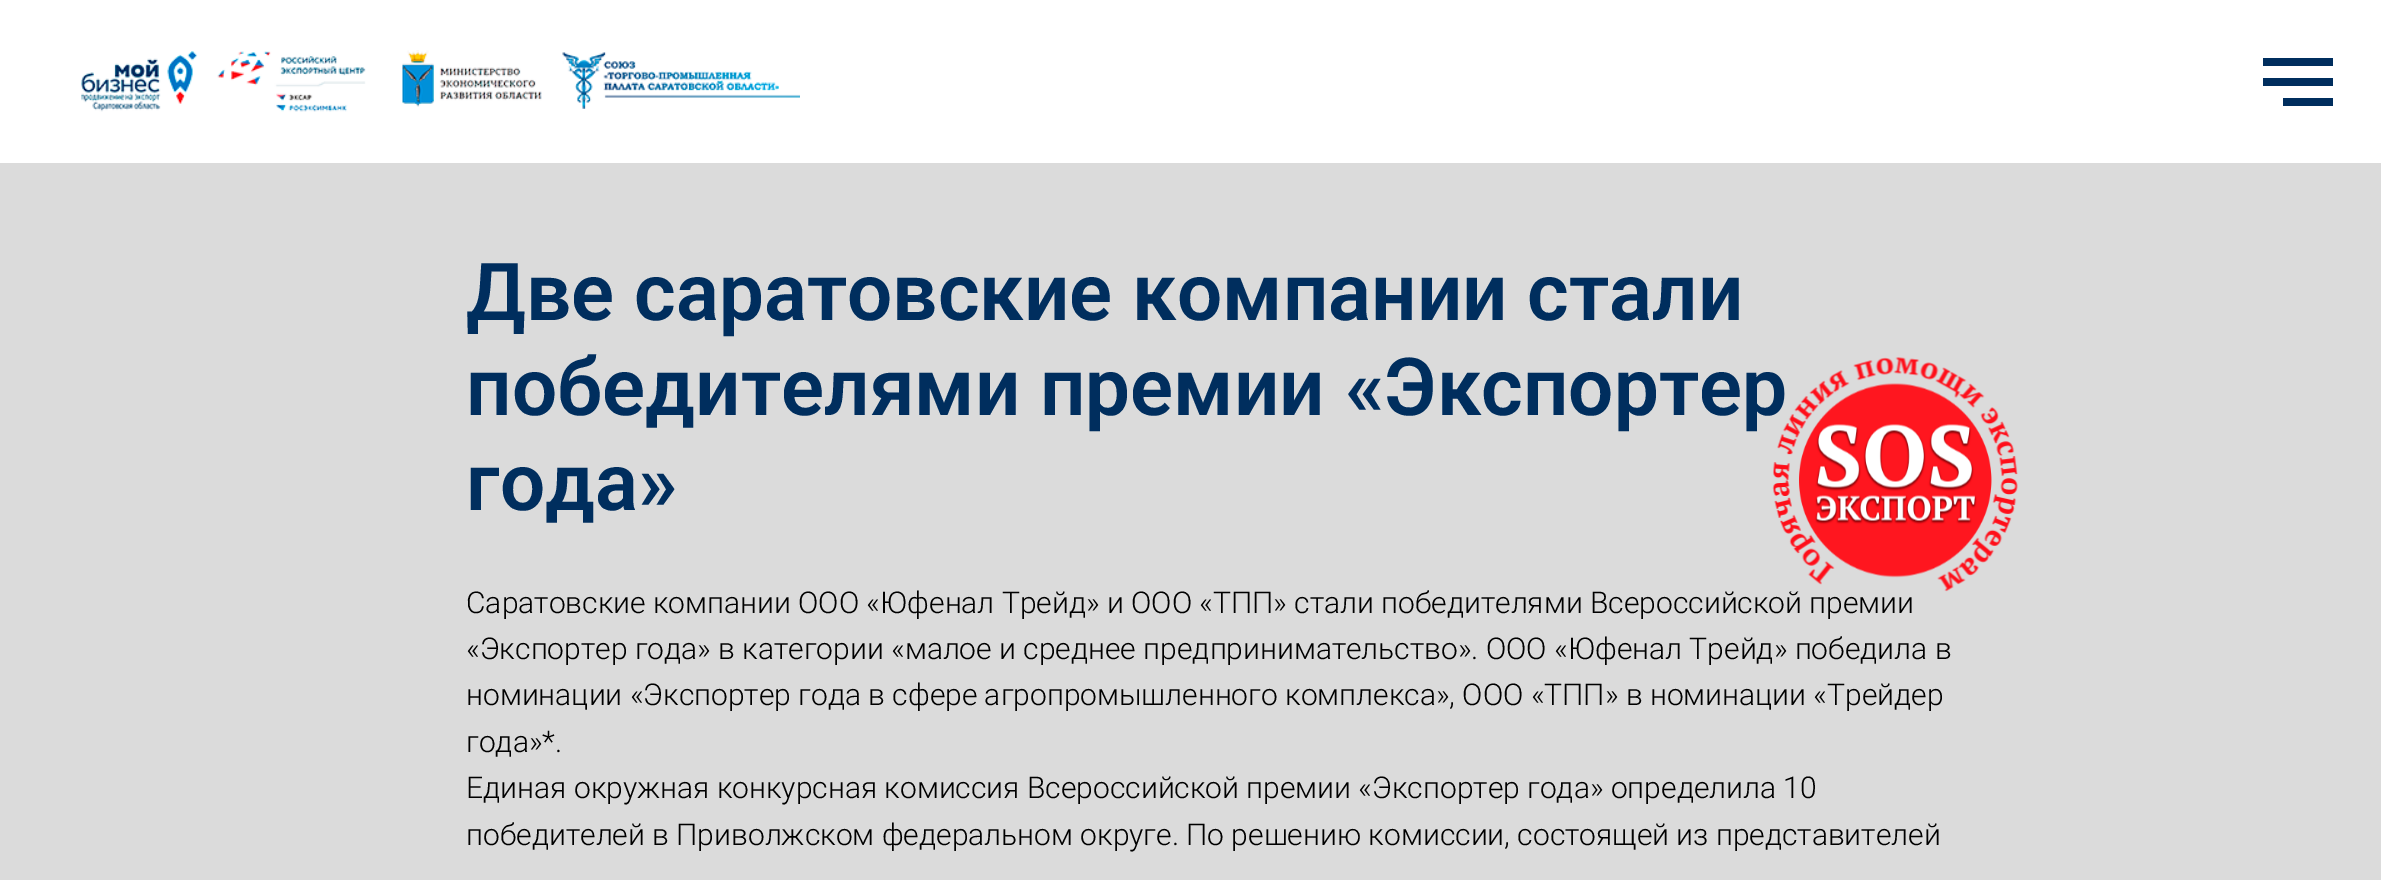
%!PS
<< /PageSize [2381 880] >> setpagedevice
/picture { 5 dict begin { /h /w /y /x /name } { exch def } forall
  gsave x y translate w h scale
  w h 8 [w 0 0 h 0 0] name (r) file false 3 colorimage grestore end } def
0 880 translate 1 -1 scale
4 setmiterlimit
0.859 setgray
0 0 2381 880 rectfill
1 setgray
0 0 2381 163 rectfill
(img1.rgb) 81 50 719 62 picture
0 0.18 0.369 setrgbcolor
2263 58 70 8 rectfill
2263 78 70 8 rectfill
2283 98 50 8 rectfill
/Roboto-SemiBold [80 0 0 -80 0 0] selectfont
466 415 moveto (победителями премии «Экспортер) show
/Roboto-Light [30 0 0 -30 0 0] selectfont
0 setgray
466 613 moveto (Саратовские компании ООО «Юфенал Трейд» и ООО «ТПП» стали победителями Всероссийской премии) show
(img2.rgb) 1772 357 246 235 picture
(img3.rgb) 1799 383 193 195 picture
/Roboto-SemiBold [80 0 0 -80 0 0] selectfont
0 0.18 0.369 setrgbcolor
466 320 moveto (Две саратовские компании стали) show
466 510 moveto (года») show
/Roboto-Light [30 0 0 -30 0 0] selectfont
0 setgray
466 659 moveto («Экспортер года» в категории «малое и среднее предпринимательство». ООО «Юфенал Трейд» победила в) show
466 705 moveto (номинации «Экспортер года в сфере агропромышленного комплекса», ООО «ТПП» в номинации «Трейдер) show
466 752 moveto (года»*.) show
466 798 moveto (Единая окружная конкурсная комиссия Всероссийской премии «Экспортер года» определила 10) show
466 845 moveto (победителей в Приволжском федеральном округе. По решению комиссии, состоящей из представителей) show
showpage
